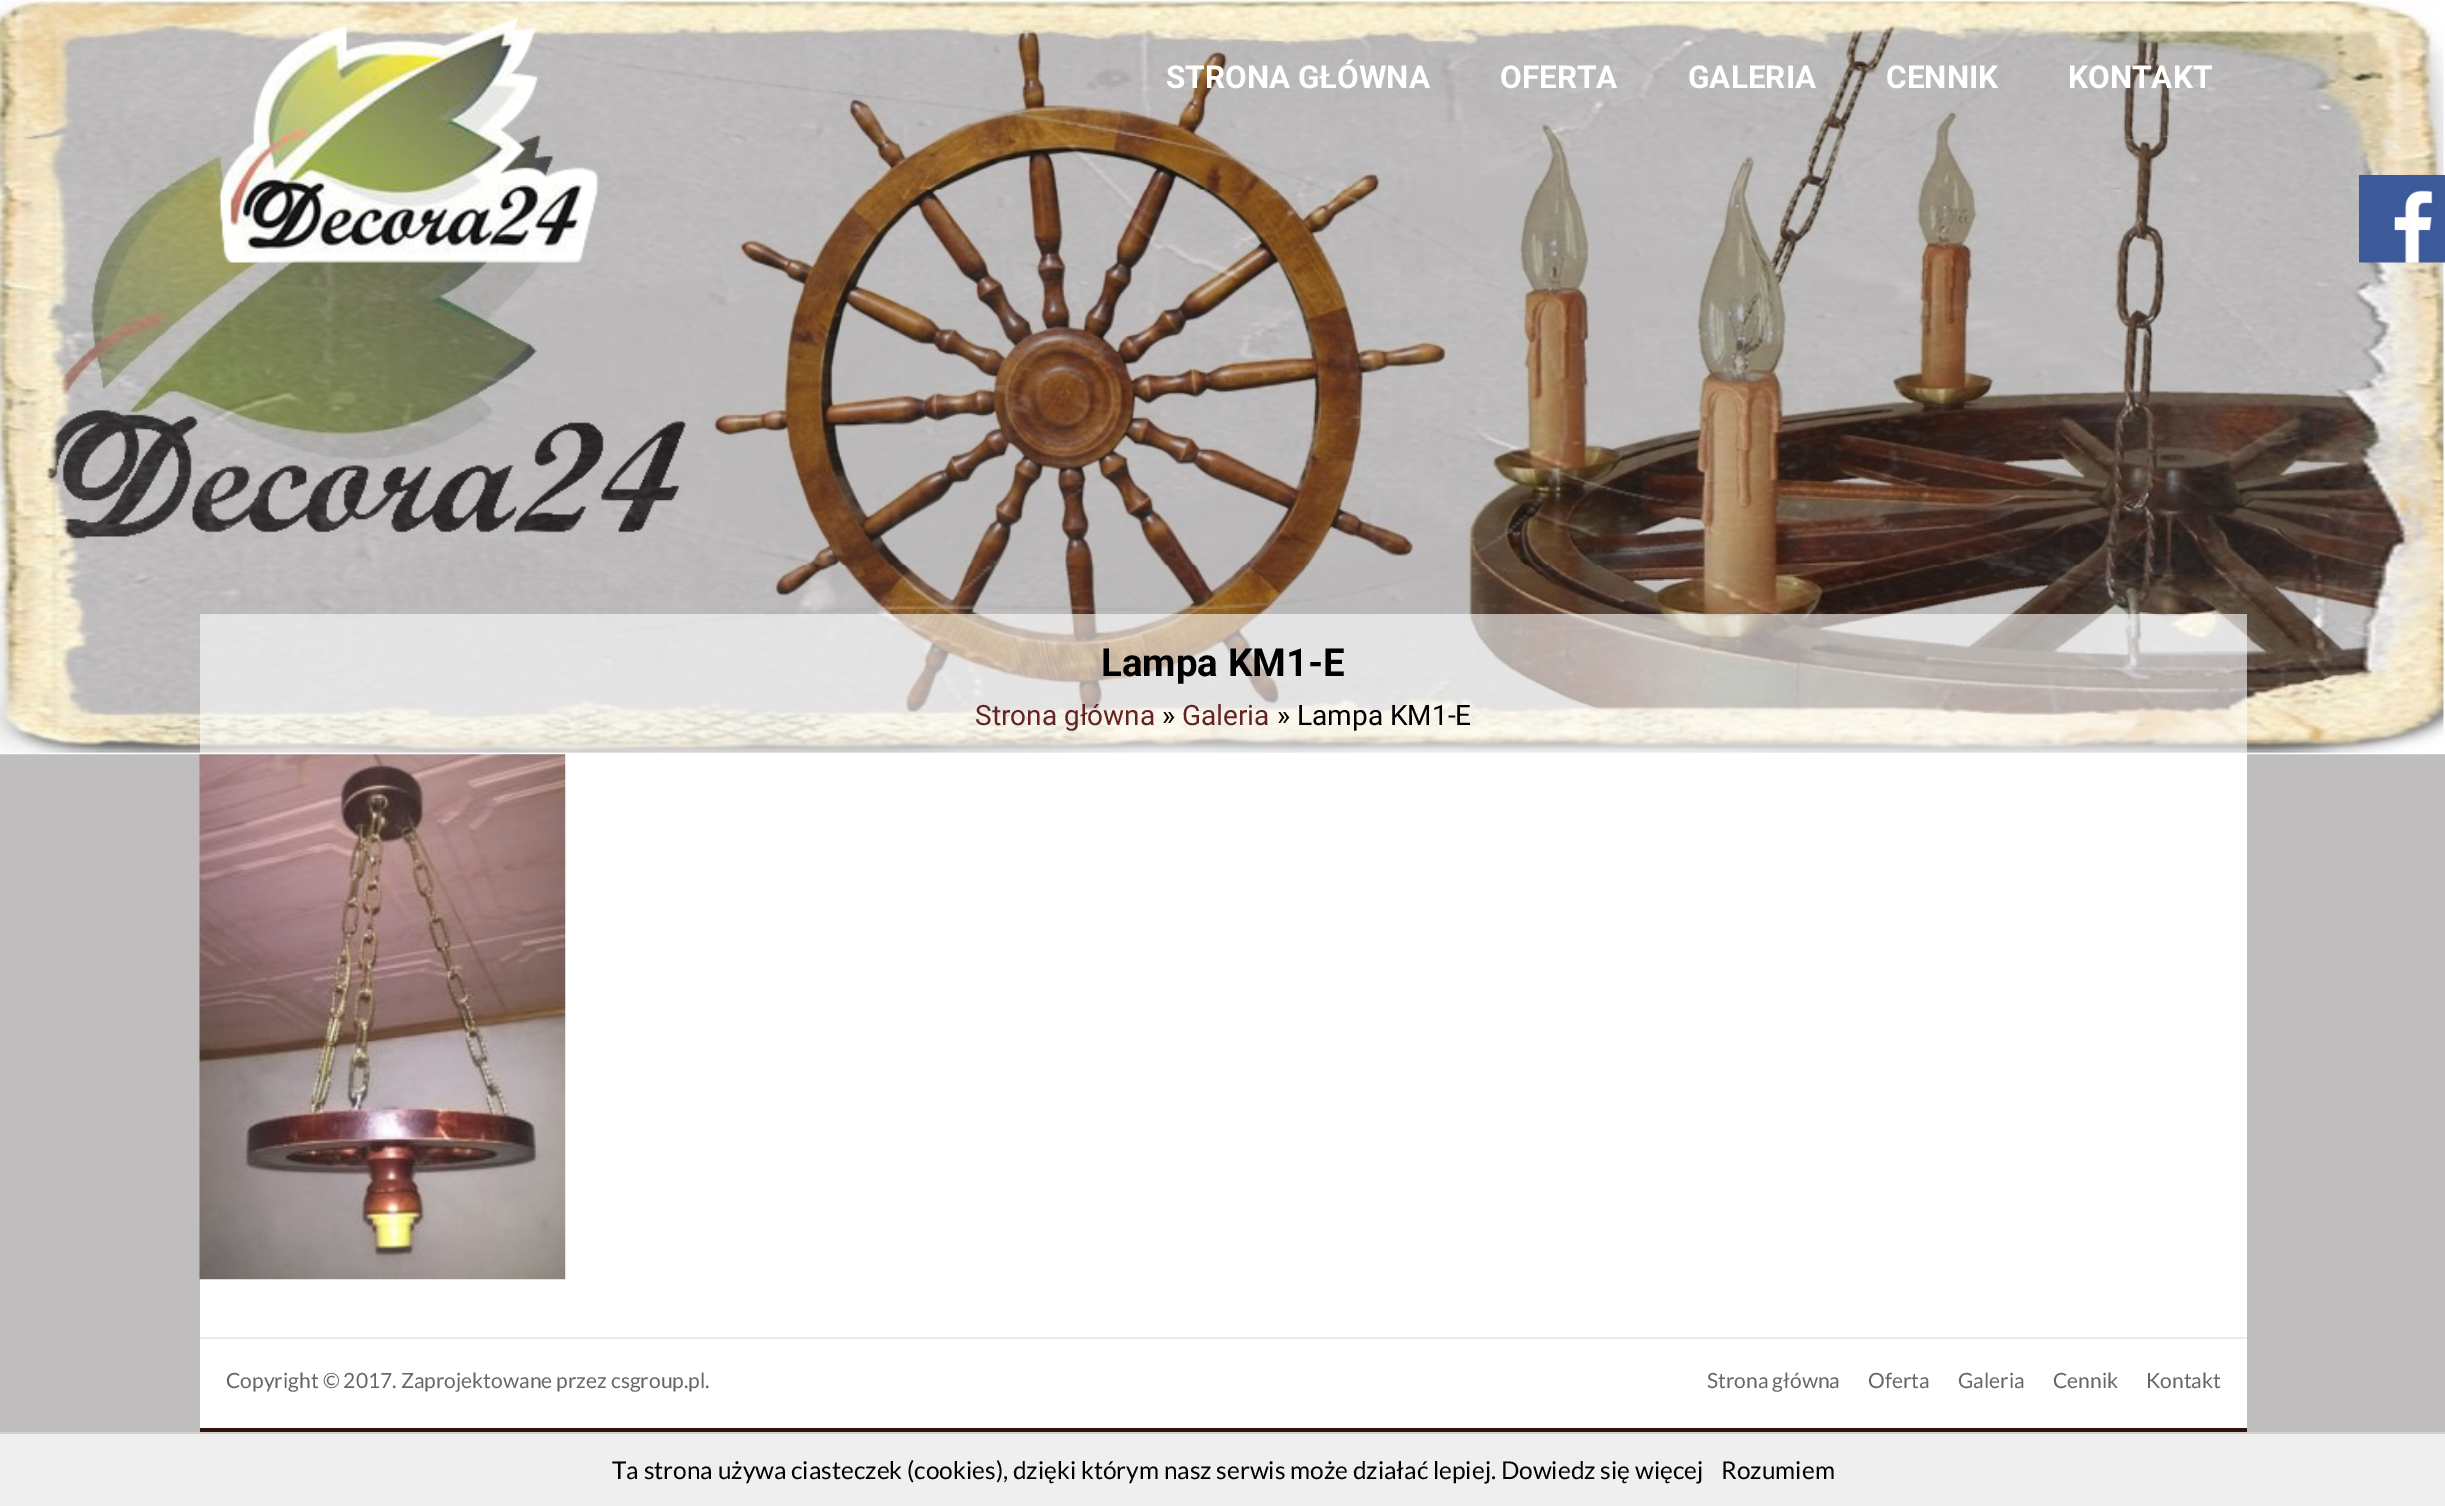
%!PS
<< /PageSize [2445 1506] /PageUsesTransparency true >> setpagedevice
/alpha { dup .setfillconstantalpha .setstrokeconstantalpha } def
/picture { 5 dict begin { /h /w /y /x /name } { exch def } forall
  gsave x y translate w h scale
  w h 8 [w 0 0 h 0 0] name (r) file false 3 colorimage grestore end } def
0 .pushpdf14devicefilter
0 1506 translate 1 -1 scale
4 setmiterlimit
0.749 0.741 0.745 setrgbcolor
0 0 2445 1506 rectfill
(img1.rgb) 0 0 2445 755 picture
(img2.rgb) 218 17 381 246 picture
/Roboto-Bold [31.5 0 0 -31.5 0 0] selectfont
1 setgray
1166 88 moveto (STRONA GŁÓWNA) show
1500 88 moveto (OFERTA) show
1688 88 moveto (GALERIA) show
1886 88 moveto (CENNIK) show
2068 88 moveto (KONTAKT) show
0.6 alpha
200 614 2047 139 rectfill
/Roboto-Bold [38.5 0 0 -38.5 0 0] selectfont
1 alpha
0 setgray
1101 676 moveto (Lampa KM1-E) show
/Roboto-Regular [28 0 0 -28 0 0] selectfont
0.388 0.141 0.137 setrgbcolor
975 725 moveto (Strona główna) show
0 setgray
1162 725 moveto (») show
0.388 0.141 0.137 setrgbcolor
1182 725 moveto (Galeria) show
0 setgray
1277 725 moveto (» Lampa KM1-E) show
1 setgray
200 754 2047 583 rectfill
(img3.rgb) 199 754 367 526 picture
(img4.rgb) 2359 175 86 88 picture
200 1339 2047 89 rectfill
0.925 0.922 0.922 setrgbcolor
200 1337 2047 2 rectfill
0.169 0.078 0.035 setrgbcolor
200 1428 2047 4 rectfill
/Lato-Regular [21 0 0 -21 0 0] selectfont
0.4 setgray
226 1388 moveto (Copyright © 2017. Zaprojektowane przez csgroup.pl.) show
1707 1388 moveto (Strona główna) show
1868 1388 moveto (Oferta) show
1958 1388 moveto (Galeria) show
2053 1388 moveto (Cennik) show
2146 1388 moveto (Kontakt) show
0.937 setgray
0 1434 2445 72 rectfill
0.827 0.816 0.816 setrgbcolor
0 1432 2445 2 rectfill
/Lato-Regular [24.5 0 0 -24.5 0 0] selectfont
0 setgray
612 1479 moveto (Ta strona używa ciasteczek \(cookies\), dzięki którym nasz serwis może działać lepiej. Dowiedz się więcej) show
1721 1479 moveto (Rozumiem) show
.poppdf14devicefilter showpage
